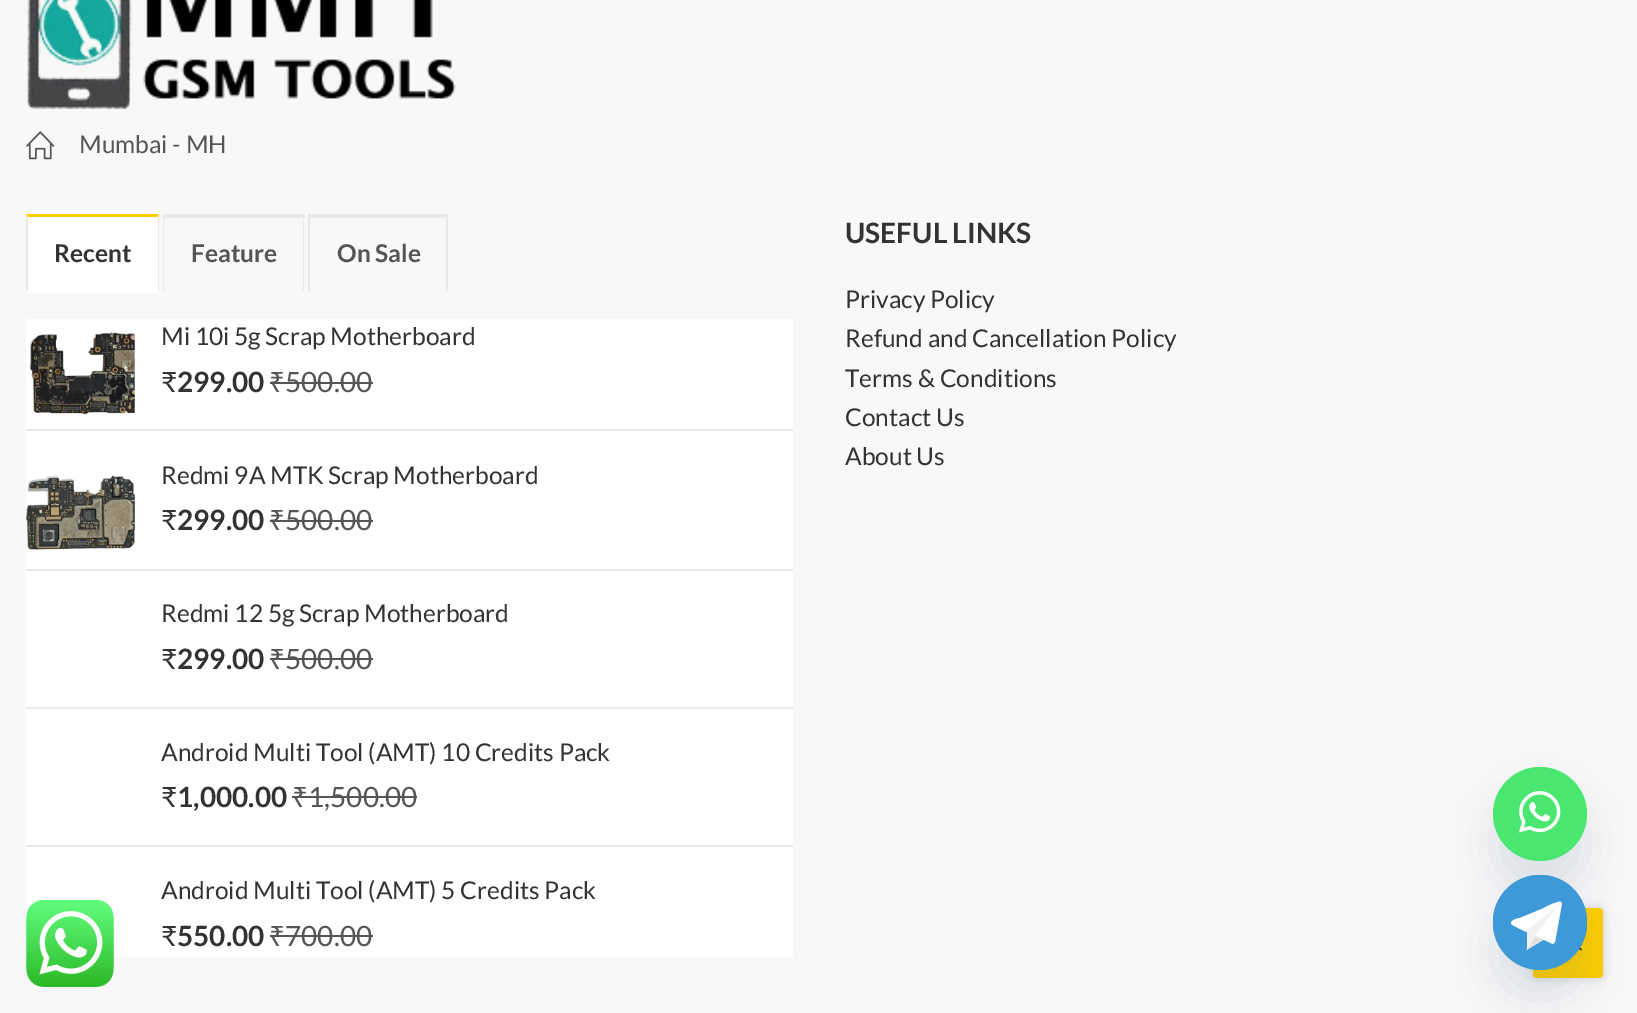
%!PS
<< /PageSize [1637 1013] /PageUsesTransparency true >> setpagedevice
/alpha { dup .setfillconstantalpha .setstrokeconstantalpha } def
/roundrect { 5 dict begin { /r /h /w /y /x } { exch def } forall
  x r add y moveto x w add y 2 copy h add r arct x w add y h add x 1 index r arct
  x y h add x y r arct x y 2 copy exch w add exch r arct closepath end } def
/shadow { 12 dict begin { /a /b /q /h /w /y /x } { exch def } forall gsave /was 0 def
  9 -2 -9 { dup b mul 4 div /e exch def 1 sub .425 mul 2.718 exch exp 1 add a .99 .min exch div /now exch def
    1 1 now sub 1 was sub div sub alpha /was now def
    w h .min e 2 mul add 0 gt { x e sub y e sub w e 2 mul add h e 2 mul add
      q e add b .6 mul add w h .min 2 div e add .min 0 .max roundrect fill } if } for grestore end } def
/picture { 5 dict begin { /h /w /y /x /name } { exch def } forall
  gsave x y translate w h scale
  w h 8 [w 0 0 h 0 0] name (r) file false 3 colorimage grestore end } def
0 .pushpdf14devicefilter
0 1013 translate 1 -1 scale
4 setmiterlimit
0.973 setgray
0 0 1637 1013 rectfill
(img1.rgb) 27 0 429 109 picture
(img2.rgb) 26 131 29 29 picture
/Lato-Regular [24.5 0 0 -24.5 0 0] selectfont
0.333 setgray
79 153 moveto (Mumbai - MH) show
1 setgray
28 217 130 74 rectfill
1 0.8 0 setrgbcolor
newpath 26 214 moveto 159 214 lineto 158 217 lineto 28 217 lineto closepath fill
0.914 setgray
newpath 159 214 moveto 159 292 lineto 158 290 lineto 158 217 lineto closepath fill
1 setgray
26 291 133 2 rectfill
0.914 setgray
newpath 26 292 moveto 26 214 lineto 28 217 lineto 28 290 lineto closepath fill
/Lato-Bold [24.5 0 0 -24.5 0 0] selectfont
0.2 setgray
54 262 moveto (Recent) show
0.914 setgray
163 214 142 4 rectfill
newpath 304 214 moveto 304 292 lineto 303 290 lineto 303 217 lineto closepath fill
newpath 163 292 moveto 163 214 lineto 164 217 lineto 164 290 lineto closepath fill
0.333 setgray
191 262 moveto (Feature) show
0.914 setgray
308 214 140 4 rectfill
newpath 448 214 moveto 448 292 lineto 446 290 lineto 446 217 lineto closepath fill
newpath 308 292 moveto 308 214 lineto 310 217 lineto 310 290 lineto closepath fill
0.333 setgray
337 262 moveto (On Sale) show
1 setgray
26 319 767 638 rectfill
0.914 setgray
26 429 767 2 rectfill
(img3.rgb) 30 331 105 84 picture
/Lato-Regular [24.5 0 0 -24.5 0 0] selectfont
0.2 setgray
161 345 moveto (Mi 10i 5g Scrap Motherboard) show
/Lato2-Regular [28 0 0 -28 0 0] selectfont
161 392 moveto (₹) show
/Lato-Bold [28 0 0 -28 0 0] selectfont
177 392 moveto (299.00) show
/NotoSans-Regular [28 0 0 -28 0 0] selectfont
0.333 setgray
269 392 moveto (₹) show
270 382 15 2 rectfill
/Lato-Regular [28 0 0 -28 0 0] selectfont
285 392 moveto (500.00) show
285 382 88 2 rectfill
0.914 setgray
26 569 767 2 rectfill
(img4.rgb) 26 475 109 75 picture
/Lato-Regular [24.5 0 0 -24.5 0 0] selectfont
0.2 setgray
161 484 moveto (Redmi 9A MTK Scrap Motherboard) show
/Lato2-Regular [28 0 0 -28 0 0] selectfont
161 530 moveto (₹) show
/Lato-Bold [28 0 0 -28 0 0] selectfont
177 530 moveto (299.00) show
/NotoSans-Regular [28 0 0 -28 0 0] selectfont
0.333 setgray
269 530 moveto (₹) show
270 520 15 2 rectfill
/Lato-Regular [28 0 0 -28 0 0] selectfont
285 530 moveto (500.00) show
285 520 88 2 rectfill
0.914 setgray
26 707 767 2 rectfill
/Lato-Regular [24.5 0 0 -24.5 0 0] selectfont
0.2 setgray
161 622 moveto (Redmi 12 5g Scrap Motherboard) show
/Lato2-Regular [28 0 0 -28 0 0] selectfont
161 669 moveto (₹) show
/Lato-Bold [28 0 0 -28 0 0] selectfont
177 669 moveto (299.00) show
/NotoSans-Regular [28 0 0 -28 0 0] selectfont
0.333 setgray
269 669 moveto (₹) show
270 658 15 2 rectfill
/Lato-Regular [28 0 0 -28 0 0] selectfont
285 669 moveto (500.00) show
285 658 88 2 rectfill
0.914 setgray
26 845 767 2 rectfill
/Lato-Regular [24.5 0 0 -24.5 0 0] selectfont
0.2 setgray
161 761 moveto (Android Multi Tool \(AMT\) 10 Credits Pack) show
/Lato2-Regular [28 0 0 -28 0 0] selectfont
161 807 moveto (₹) show
/Lato-Bold [28 0 0 -28 0 0] selectfont
177 807 moveto (1,000.00) show
/NotoSans-Regular [28 0 0 -28 0 0] selectfont
0.333 setgray
292 807 moveto (₹) show
292 796 16 2 rectfill
308 796 109 2 rectfill
/Lato-Regular [28 0 0 -28 0 0] selectfont
308 807 moveto (1,500.00) show
/Lato-Regular [24.5 0 0 -24.5 0 0] selectfont
0.2 setgray
161 899 moveto (Android Multi Tool \(AMT\) 5 Credits Pack) show
/Lato2-Regular [28 0 0 -28 0 0] selectfont
161 946 moveto (₹) show
/Lato-Bold [28 0 0 -28 0 0] selectfont
177 946 moveto (550.00) show
/NotoSans-Regular [28 0 0 -28 0 0] selectfont
0.333 setgray
269 946 moveto (₹) show
270 935 15 2 rectfill
/Lato-Regular [28 0 0 -28 0 0] selectfont
285 946 moveto (700.00) show
285 935 88 2 rectfill
/Lato-Bold [28 0 0 -28 0 0] selectfont
0.2 setgray
845 243 moveto (USEFUL LINKS) show
/Lato-Regular [24.5 0 0 -24.5 0 0] selectfont
845 308 moveto (Privacy Policy) show
845 347 moveto (Refund and Cancellation Policy) show
845 387 moveto (Terms & Conditions) show
845 426 moveto (Contact Us) show
845 465 moveto (About Us) show
0 setgray
1533 908 70 70 4 4.5 0.15 shadow
1 0.8 0 setrgbcolor
1533 908 70 70 4 roundrect fill
(img7.rgb) 1579 947 3 4 picture
0.286 0.408 0.494 setrgbcolor
1493 795 94 94 47 21 0.16 shadow
0.286 0.902 0.439 setrgbcolor
newpath 1540 814 47 0 360 arc closepath fill
(img5.rgb) 1519 791 42 42 picture
0.286 0.408 0.494 setrgbcolor
1493 903 94 95 47 21 0.16 shadow
0.243 0.6 0.847 setrgbcolor
1493 875 94 95 47 roundrect fill
newpath 1540 922 47 0 360 arc closepath fill
0.878 setgray
newpath 1535 934.5 moveto 1526.5 950 lineto 1545 939 lineto closepath fill
1 setgray
newpath 1561 902 moveto 1560 900 1545 907 1544 908 curveto 1520 918 lineto 1518 918 1511 920 1511 923 curveto 1511 925 1517 927 1518 928 curveto 1553 944 lineto 1554 943 lineto 1555 942 lineto 1562 903 lineto closepath fill
0.949 setgray
newpath 1560 903 moveto 1527 931 lineto 1527 950 lineto 1536 935 lineto closepath fill
(img6.rgb) 26 900 88 87 picture
.poppdf14devicefilter showpage
